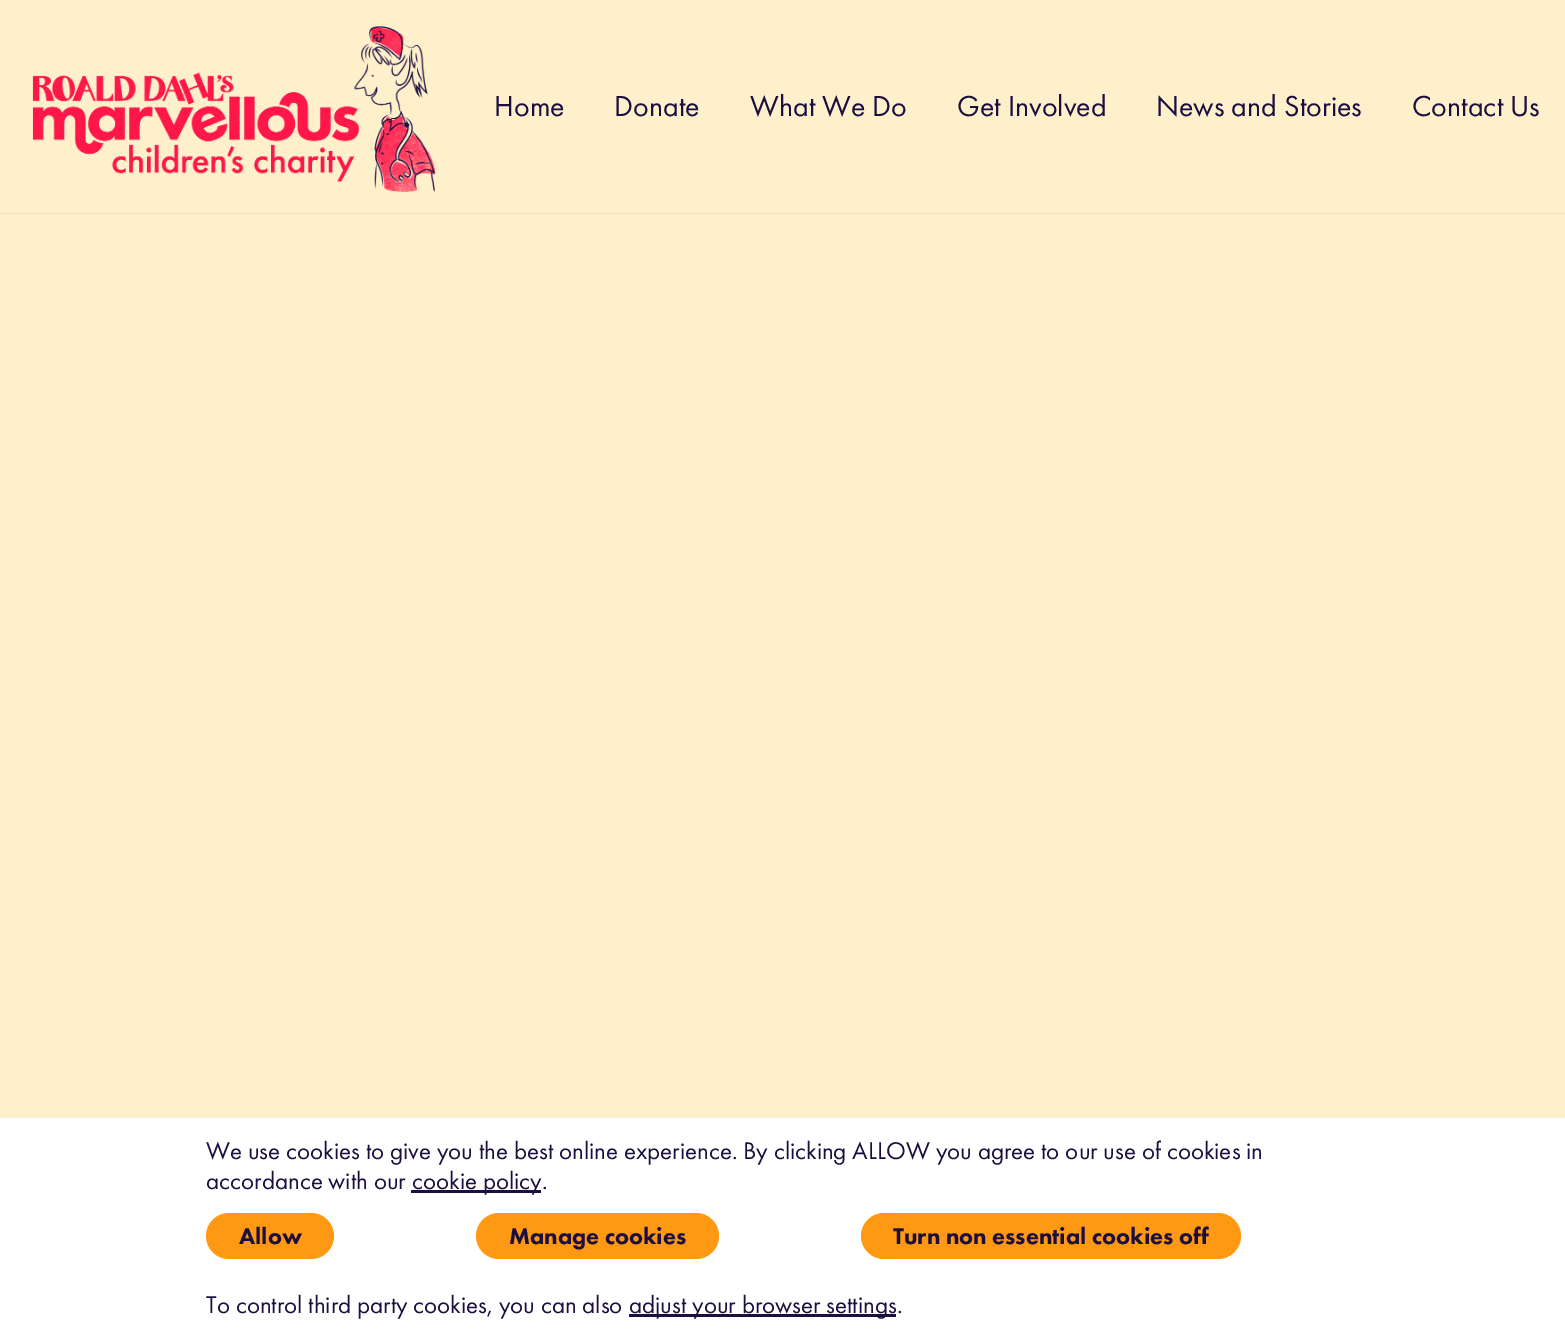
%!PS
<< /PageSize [1565 1336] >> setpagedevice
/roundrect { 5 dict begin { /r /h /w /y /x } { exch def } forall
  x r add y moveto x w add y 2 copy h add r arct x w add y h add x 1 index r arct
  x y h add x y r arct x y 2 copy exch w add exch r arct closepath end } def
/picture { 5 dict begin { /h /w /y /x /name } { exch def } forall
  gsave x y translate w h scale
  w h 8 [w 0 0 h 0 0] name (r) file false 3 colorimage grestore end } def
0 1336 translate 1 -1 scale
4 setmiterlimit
1 0.941 0.8 setrgbcolor
0 0 1565 1336 rectfill
0.992 0.875 0.725 setrgbcolor
0 213 1565 1 rectfill
(img1.rgb) 32 26 404 166 picture
/FuturaPT-Regular [30 0 0 -30 0 0] selectfont
0.11 0.059 0.251 setrgbcolor
494 116 moveto (Home) show
614 116 moveto (Donate) show
750 116 moveto (What We Do) show
957 116 moveto (Get Involved) show
1156 116 moveto (News and Stories) show
1412 116 moveto (Contact Us) show
1 setgray
0 1118 1565 218 rectfill
/FuturaPT-Regular [25 0 0 -25 0 0] selectfont
0.11 0.059 0.251 setrgbcolor
206 1159 moveto (We use cookies to give you the best online experience. By clicking ALLOW you agree to our use of cookies in) show
206 1189 moveto (accordance with our) show
411 1190 130 3 rectfill
412 1189 moveto (cookie policy.) show
1 0.6 0.078 setrgbcolor
206 1213 128 46 23 roundrect fill
/FuturaPT-Black [23.75 0 0 -23.75 0 0] selectfont
0.11 0.059 0.251 setrgbcolor
239 1244 moveto (Allow) show
1 0.6 0.078 setrgbcolor
476 1213 243 46 23 roundrect fill
0.11 0.059 0.251 setrgbcolor
509 1244 moveto (Manage cookies) show
1 0.6 0.078 setrgbcolor
861 1213 380 46 23 roundrect fill
0.11 0.059 0.251 setrgbcolor
893 1244 moveto (Turn non essential cookies off) show
/FuturaPT-Regular [25 0 0 -25 0 0] selectfont
206 1313 moveto (To control third party cookies, you can also) show
629 1314 267 3 rectfill
629 1313 moveto (adjust your browser settings.) show
showpage
